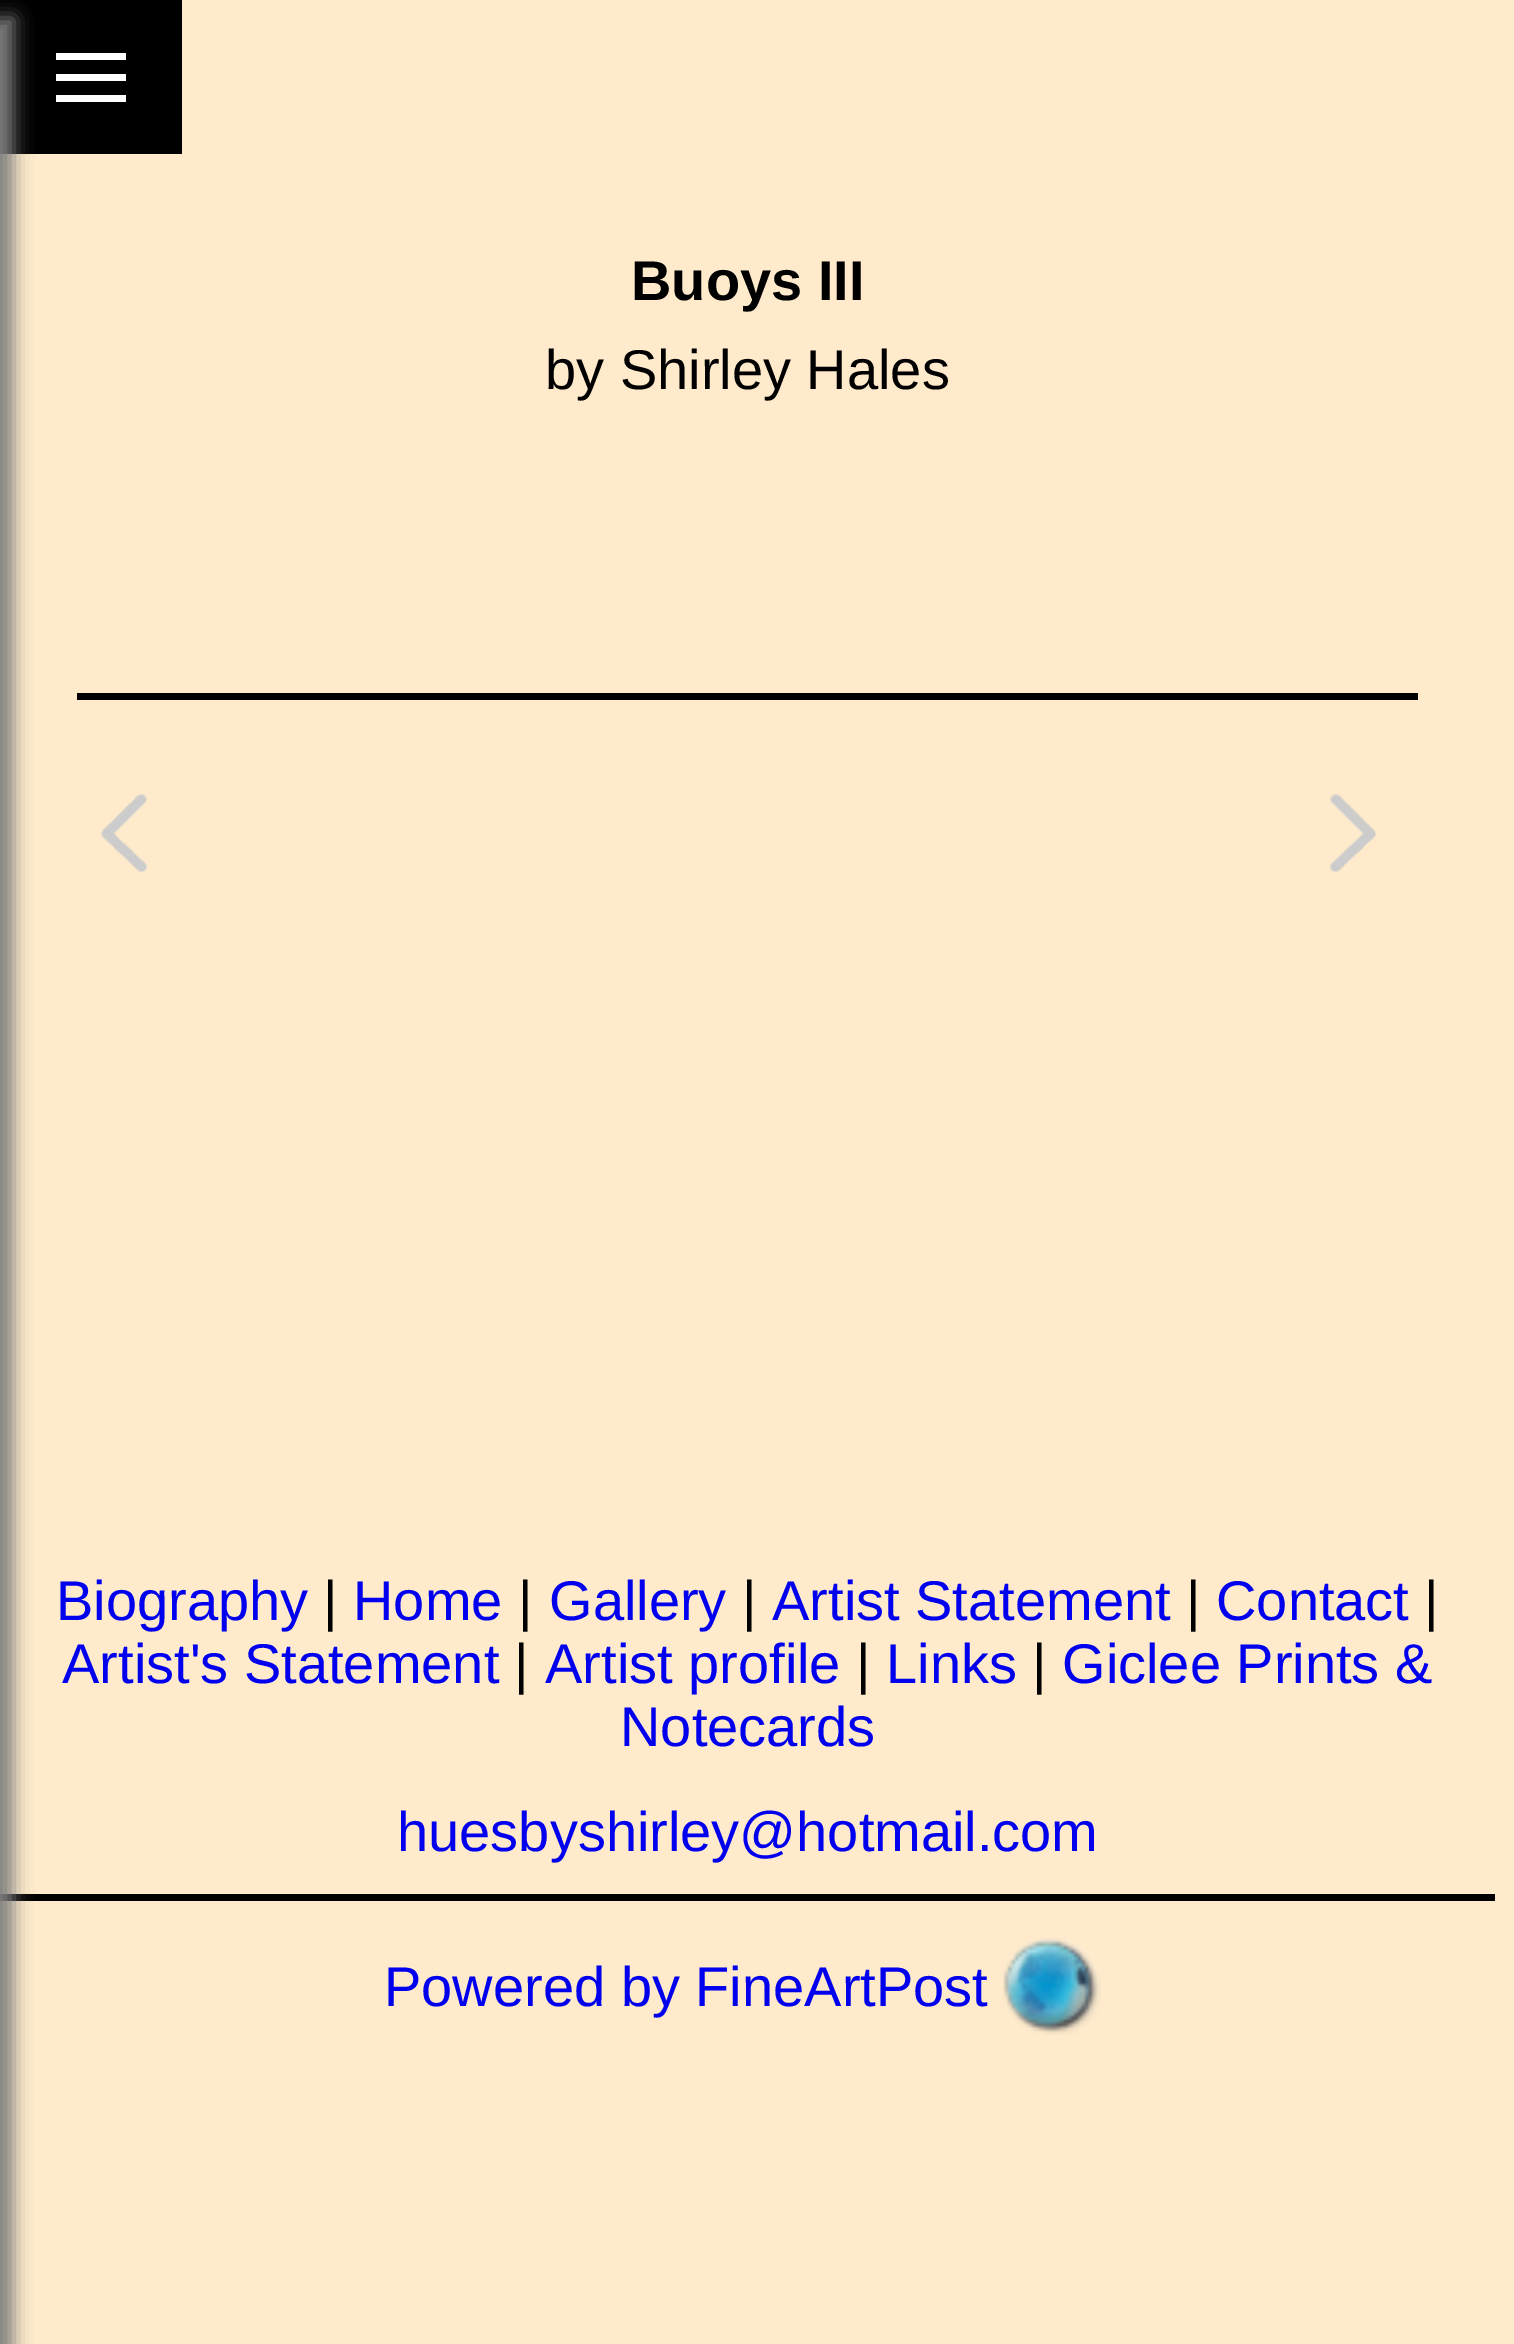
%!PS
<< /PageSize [1514 2344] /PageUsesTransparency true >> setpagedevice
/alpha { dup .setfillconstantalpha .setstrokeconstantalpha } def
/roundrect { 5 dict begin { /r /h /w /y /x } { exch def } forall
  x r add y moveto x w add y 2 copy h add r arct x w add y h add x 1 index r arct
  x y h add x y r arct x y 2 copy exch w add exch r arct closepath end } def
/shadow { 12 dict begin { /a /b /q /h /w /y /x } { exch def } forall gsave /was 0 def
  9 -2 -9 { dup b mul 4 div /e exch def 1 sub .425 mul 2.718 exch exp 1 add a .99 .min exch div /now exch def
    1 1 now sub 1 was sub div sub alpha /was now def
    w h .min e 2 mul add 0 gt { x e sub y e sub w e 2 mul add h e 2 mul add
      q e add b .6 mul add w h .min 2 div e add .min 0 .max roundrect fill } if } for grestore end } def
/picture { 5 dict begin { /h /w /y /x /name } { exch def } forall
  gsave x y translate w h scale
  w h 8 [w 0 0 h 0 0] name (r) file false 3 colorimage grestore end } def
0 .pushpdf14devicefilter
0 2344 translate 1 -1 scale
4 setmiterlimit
1 0.922 0.796 setrgbcolor
0 0 1514 2344 rectfill
0 setgray
0 0 182 154 rectfill
1 setgray
56 74 70 7 rectfill
56 53 70 7 rectfill
56 95 70 7 rectfill
0 setgray
0 1894 1495 7 rectfill
0.502 setgray
-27 18 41 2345 0 9 1 shadow
/LiberationSans-Bold [56 0 0 -56 0 0] selectfont
0 setgray
631 300 moveto (Buoys III) show
/LiberationSans-Regular [56 0 0 -56 0 0] selectfont
545 389 moveto (by Shirley Hales) show
77 693 1341 7 rectfill
(img1.rgb) 101 794 46 78 picture
(img2.rgb) 1330 794 46 78 picture
0 0 0.933 setrgbcolor
56 1620 moveto (Biography) show
0 setgray
323 1620 moveto (|) show
0 0 0.933 setrgbcolor
353 1620 moveto (Home) show
0 setgray
518 1620 moveto (|) show
0 0 0.933 setrgbcolor
549 1620 moveto (Gallery) show
0 setgray
742 1620 moveto (|) show
0 0 0.933 setrgbcolor
772 1620 moveto (Artist Statement) show
0 setgray
1186 1620 moveto (|) show
0 0 0.933 setrgbcolor
1216 1620 moveto (Contact) show
0 setgray
1424 1620 moveto (|) show
0 0 0.933 setrgbcolor
62 1683 moveto (Artist's Statement) show
0 setgray
514 1683 moveto (|) show
0 0 0.933 setrgbcolor
545 1683 moveto (Artist profile) show
0 setgray
856 1683 moveto (|) show
0 0 0.933 setrgbcolor
886 1683 moveto (Links) show
0 setgray
1032 1683 moveto (|) show
0 0 0.933 setrgbcolor
1062 1683 moveto (Giclee Prints &) show
620 1746 moveto (Notecards) show
397 1851 moveto (huesbyshirley@hotmail.com) show
384 2006 moveto (Powered by FineArtPost) show
(img3.rgb) 1002 1938 99 97 picture
.poppdf14devicefilter showpage
